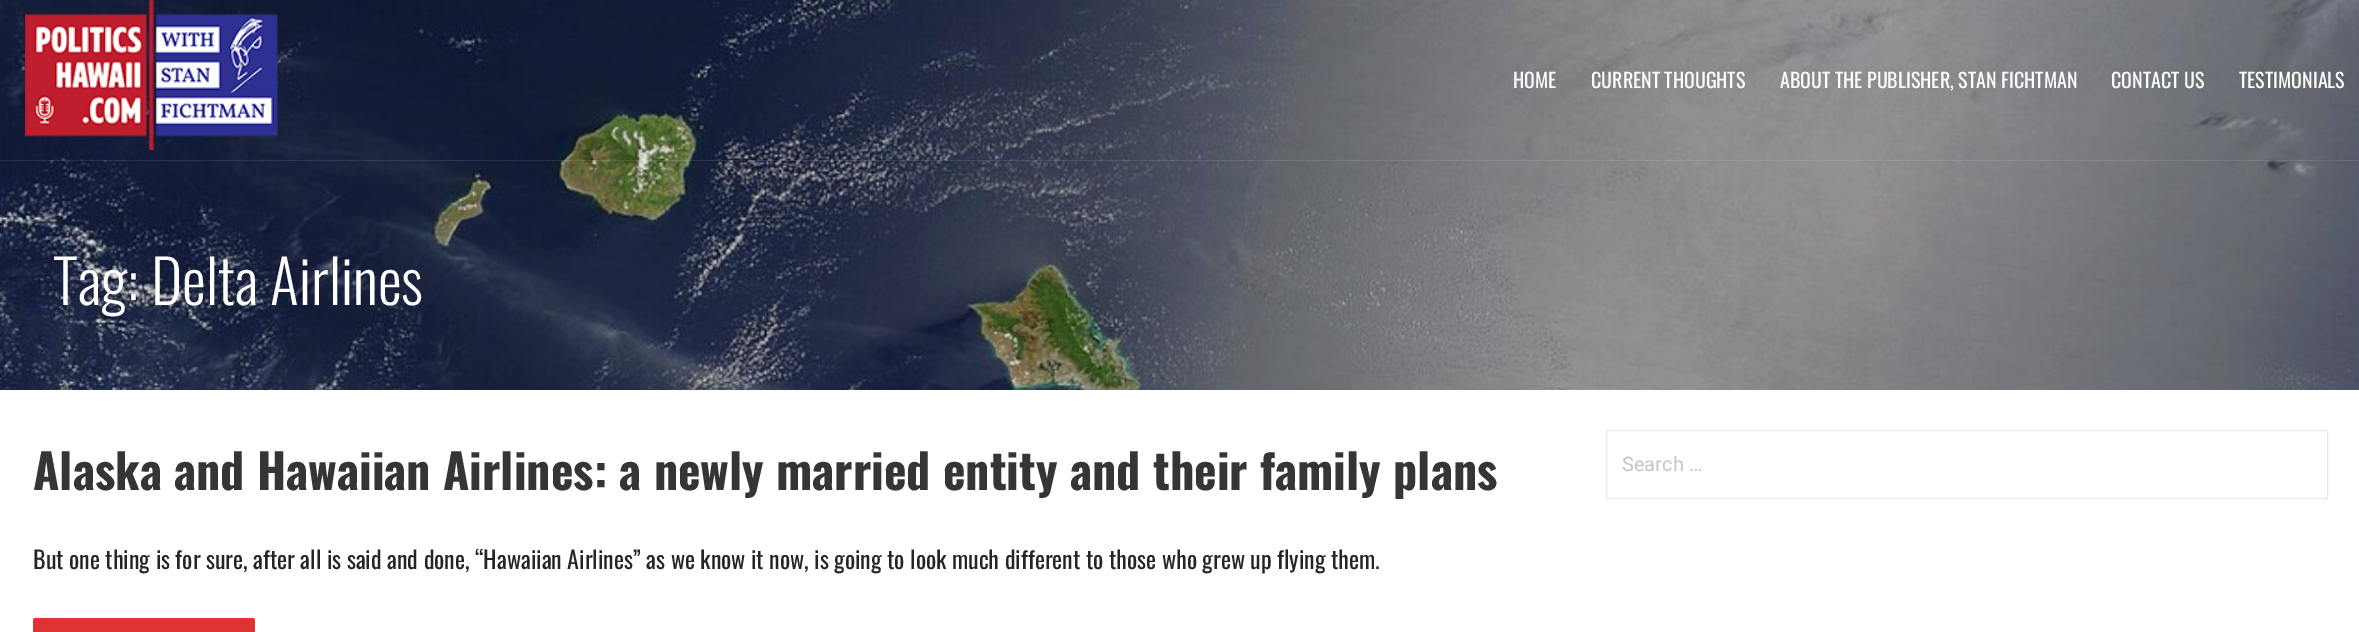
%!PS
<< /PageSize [2359 632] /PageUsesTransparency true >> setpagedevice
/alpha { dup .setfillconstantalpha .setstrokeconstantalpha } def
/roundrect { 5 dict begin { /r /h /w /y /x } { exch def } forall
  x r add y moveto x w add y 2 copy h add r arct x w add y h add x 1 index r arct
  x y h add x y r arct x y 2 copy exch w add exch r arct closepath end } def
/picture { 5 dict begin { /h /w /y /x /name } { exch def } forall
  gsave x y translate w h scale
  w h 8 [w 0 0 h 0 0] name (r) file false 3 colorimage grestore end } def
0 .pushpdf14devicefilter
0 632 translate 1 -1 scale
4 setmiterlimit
1 setgray
0 0 2359 632 rectfill
(img1.rgb) 0 0 2359 390 picture
0.1 alpha
0 160 2359 1 rectfill
1 alpha
(img2.rgb) 25 0 253 150 picture
/Oswald-Regular [20 0 0 -20 0 0] selectfont
1513 88 moveto (HOME) show
1591 88 moveto (CURRENT THOUGHTS) show
1780 88 moveto (ABOUT THE PUBLISHER, STAN FICHTMAN) show
2111 88 moveto (CONTACT US) show
2239 88 moveto (TESTIMONIALS) show
/Oswald-Light [60 0 0 -60 0 0] selectfont
53 305 moveto (Tag: Delta Airlines) show
/Oswald-Bold [48 0 0 -48 0 0] selectfont
0.208 setgray
33 490 moveto (Alaska and Hawaiian Airlines: a newly married entity and their family plans) show
/Oswald-Regular [24 0 0 -24 0 0] selectfont
0.145 setgray
33 569 moveto (But one thing is for sure, after all is said and done, “Hawaiian Airlines” as we know it now, is going to look much different to those who grew up flying them.) show
0.867 0.2 0.2 setrgbcolor
33 618 222 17 2.5 roundrect fill
0.914 setgray
1606.5 430.5 721 68 rectstroke
/Roboto-Regular [20 0 0 -20 0 0] selectfont
0.769 setgray
1622 471 moveto (Search …) show
.poppdf14devicefilter showpage
